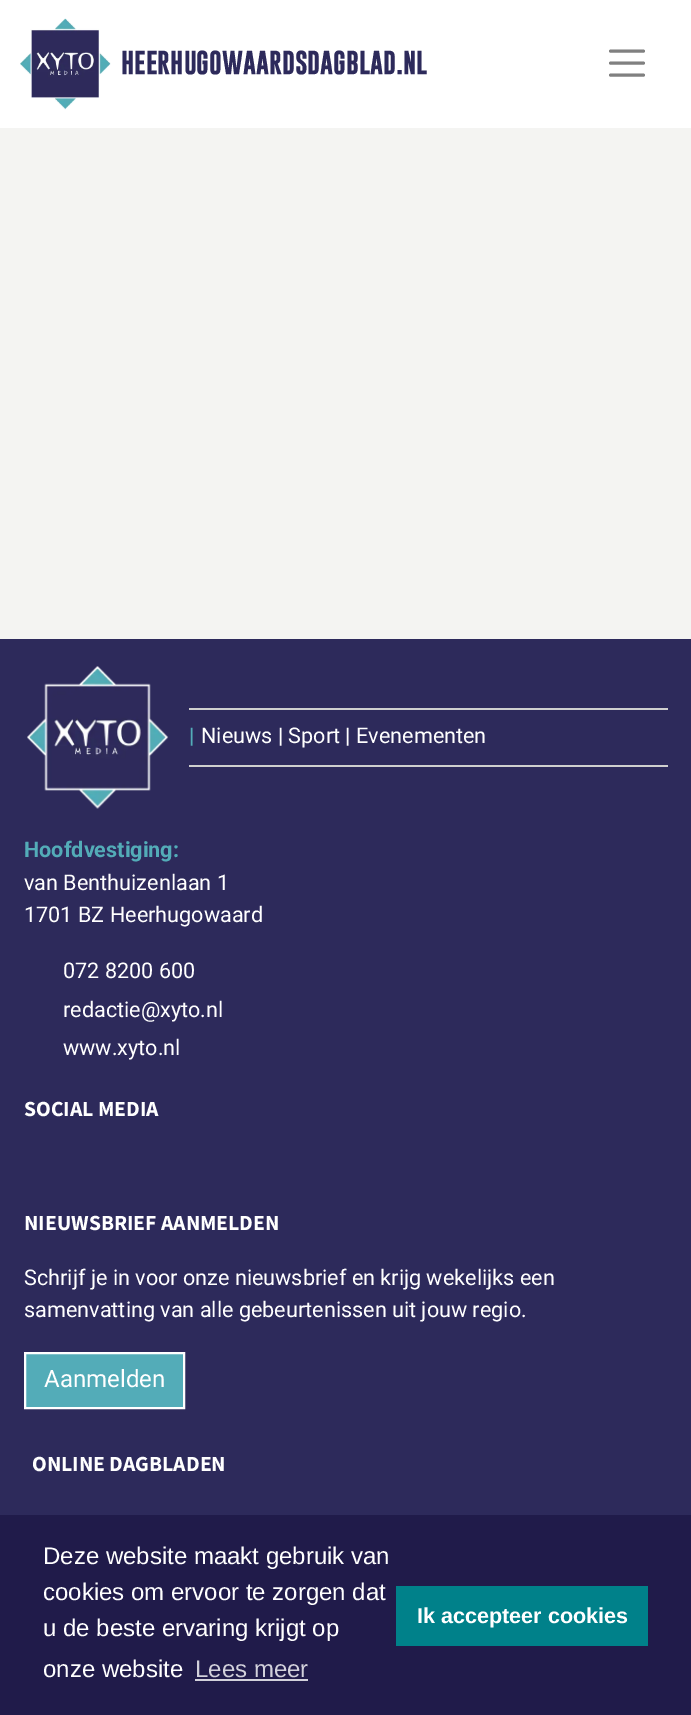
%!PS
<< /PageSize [691 1715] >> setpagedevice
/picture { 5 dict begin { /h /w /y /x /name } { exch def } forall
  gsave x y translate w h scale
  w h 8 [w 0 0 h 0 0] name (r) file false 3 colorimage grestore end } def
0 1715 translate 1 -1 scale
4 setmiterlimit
0.957 0.957 0.949 setrgbcolor
0 0 691 1715 rectfill
1 setgray
0 0 691 128 rectfill
(img1.rgb) 20 18 91 92 picture
/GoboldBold-Bold [24 0 0 -24 0 0] selectfont
0.176 0.165 0.357 setrgbcolor
121 74 moveto (HEERHUGOWAARDSDAGBLAD.NL) show
0.502 setgray
3 setlinewidth
1 setlinecap
newpath 610.5 51 moveto 643.5 51 lineto 610.5 63 moveto 643.5 63 lineto 610.5 75 moveto 643.5 75 lineto stroke
0.176 0.165 0.357 setrgbcolor
0 639 691 876 rectfill
(img2.rgb) 27 666 142 143 picture
0.812 setgray
189 708 479 2 rectfill
189 765 479 2 rectfill
/Roboto-Regular [21.6 0 0 -21.6 0 0] selectfont
0.325 0.675 0.722 setrgbcolor
189 743 moveto (|) show
1 setgray
201 743 moveto (Nieuws | Sport | Evenementen) show
/Roboto-Bold [21.6 0 0 -21.6 0 0] selectfont
0.325 0.675 0.722 setrgbcolor
24 857 moveto (Hoofdvestiging:) show
/Roboto-Regular [21.6 0 0 -21.6 0 0] selectfont
1 setgray
24 890 moveto (van Benthuizenlaan 1) show
24 922 moveto (1701 BZ Heerhugowaard) show
63 978 moveto (072 8200 600) show
63 1017 moveto (redactie@xyto.nl) show
63 1055 moveto (www.xyto.nl) show
/SourceSansPro-Bold [21.6 0 0 -21.6 0 0] selectfont
24 1116 moveto (SOCIAL MEDIA) show
24 1230 moveto (NIEUWSBRIEF AANMELDEN) show
/Roboto-Regular [21.6 0 0 -21.6 0 0] selectfont
24 1285 moveto (Schrijf je in voor onze nieuwsbrief en krijg wekelijks een) show
24 1317 moveto (samenvatting van alle gebeurtenissen uit jouw regio.) show
0.325 0.675 0.722 setrgbcolor
newpath 25 1353 moveto 184 1353 lineto 184 1408 lineto 25 1408 lineto closepath gsave fill grestore
1 setgray
2 setlinewidth
0 setlinecap
stroke
/Roboto-Regular [24 0 0 -24 0 0] selectfont
44 1387 moveto (Aanmelden) show
/SourceSansPro-Bold [21.6 0 0 -21.6 0 0] selectfont
32 1471 moveto (ONLINE DAGBLADEN) show
0.125 0.106 0.29 setrgbcolor
0 1515 691 200 rectfill
/LiberationSans-Regular [24 0 0 -24 0 0] selectfont
1 setgray
43 1564 moveto (Deze website maakt gebruik van) show
43 1600 moveto (cookies om ervoor te zorgen dat) show
43 1636 moveto (u de beste ervaring krijgt op) show
43 1677 moveto (onze website) show
0.824 0.82 0.859 setrgbcolor
195 1677 moveto (Lees meer) show
195 1679 113 2 rectfill
0 0.506 0.541 setrgbcolor
396 1586 252 60 rectfill
/LiberationSans-Bold [21.6 0 0 -21.6 0 0] selectfont
1 setgray
417 1623 moveto (Ik accepteer cookies) show
showpage
